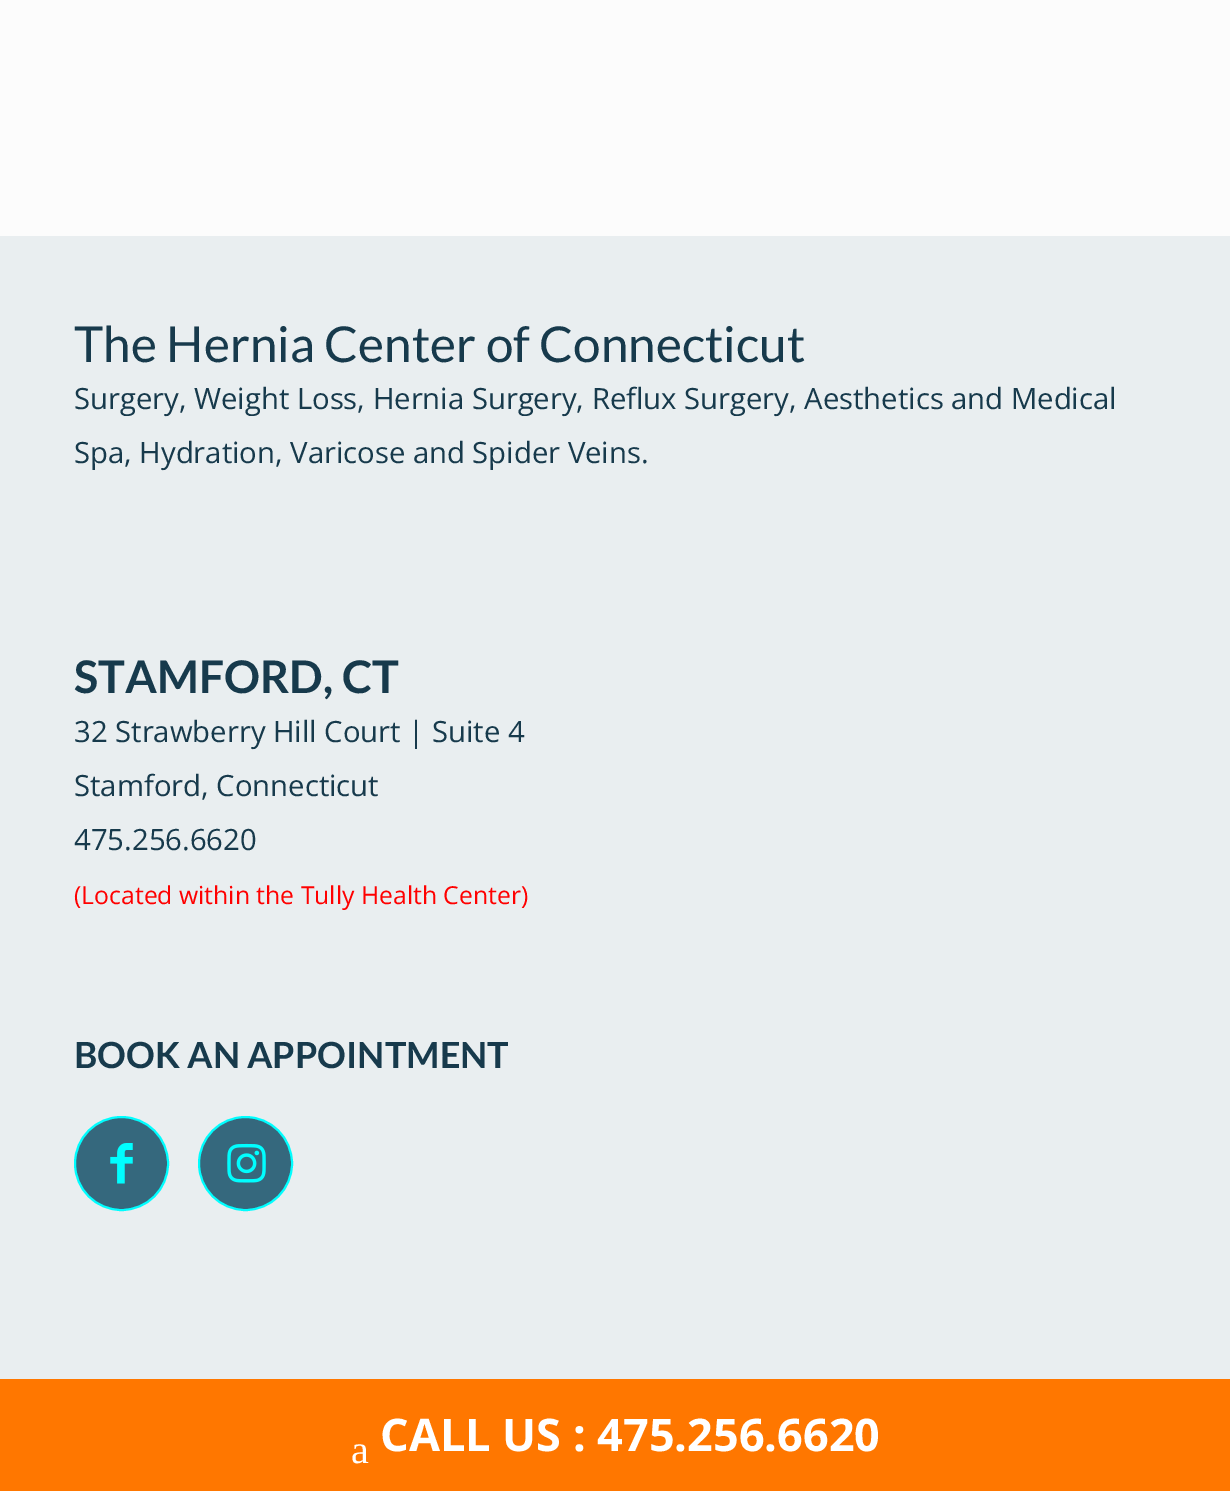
%!PS
<< /PageSize [1230 1491] >> setpagedevice
/picture { 5 dict begin { /h /w /y /x /name } { exch def } forall
  gsave x y translate w h scale
  w h 8 [w 0 0 h 0 0] name (r) file false 3 colorimage grestore end } def
0 1491 translate 1 -1 scale
4 setmiterlimit
0.988 setgray
0 0 1230 1491 rectfill
0.914 0.933 0.941 setrgbcolor
0 236 1230 1143 rectfill
/Lato-Regular [49.5 0 0 -49.5 0 0] selectfont
0.09 0.227 0.298 setrgbcolor
74 362 moveto (The Hernia Center of Connecticut) show
/OpenSans-Regular [29.25 0 0 -29.25 0 0] selectfont
74 409 moveto (Surgery, Weight Loss, Hernia Surgery, Reflux Surgery, Aesthetics and Medical) show
74 463 moveto (Spa, Hydration, Varicose and Spider Veins.) show
/Lato-Bold [45 0 0 -45 0 0] selectfont
74 693 moveto (STAMFORD, CT) show
/OpenSans-Regular [29.25 0 0 -29.25 0 0] selectfont
74 742 moveto (32 Strawberry Hill Court | Suite 4) show
74 796 moveto (Stamford, Connecticut) show
74 850 moveto (475.256.6620) show
/OpenSans-Regular [24.75 0 0 -24.75 0 0] selectfont
1 0 0 setrgbcolor
74 904 moveto (\(Located within the Tully Health Center\)) show
/Lato-Bold [36 0 0 -36 0 0] selectfont
0.09 0.227 0.298 setrgbcolor
74 1068 moveto (BOOK AN APPOINTMENT) show
0.208 0.408 0.49 setrgbcolor
newpath 121.5 1163.5 46.5 0 360 arc closepath gsave fill grestore
0 0.996 1 setrgbcolor
2 setlinewidth
stroke
(img1.rgb) 110 1143 23 41 picture
0.208 0.408 0.49 setrgbcolor
newpath 245.5 1163.5 46.5 0 360 arc closepath gsave fill grestore
0 0.996 1 setrgbcolor
stroke
(img2.rgb) 227 1143 39 40 picture
1 0.467 0 setrgbcolor
0 1379 1230 112 rectfill
/OpenSans-Bold [45 0 0 -45 0 0] selectfont
1 setgray
380 1451 moveto (CALL US : 475.256.6620) show
/LiberationSerif-Regular [40 0 0 -40 0 0] selectfont
351 1463 moveto (a) show
showpage
